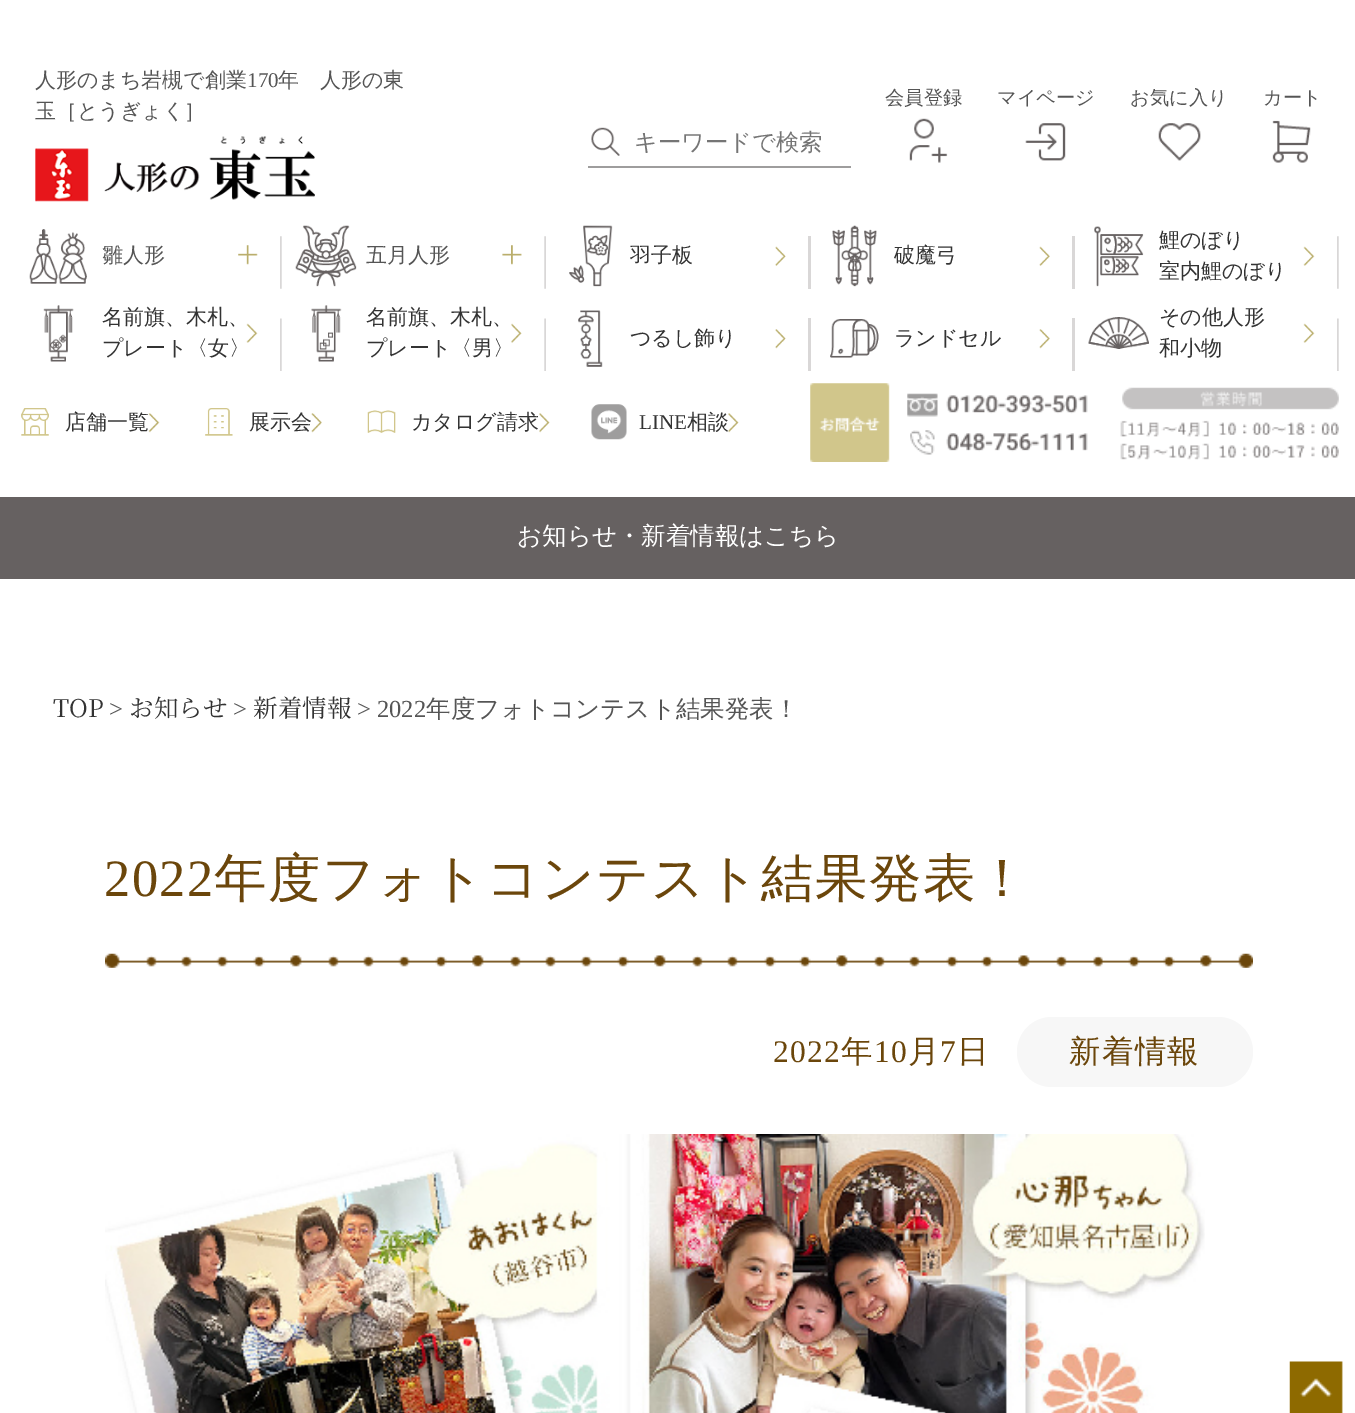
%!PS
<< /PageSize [1355 1413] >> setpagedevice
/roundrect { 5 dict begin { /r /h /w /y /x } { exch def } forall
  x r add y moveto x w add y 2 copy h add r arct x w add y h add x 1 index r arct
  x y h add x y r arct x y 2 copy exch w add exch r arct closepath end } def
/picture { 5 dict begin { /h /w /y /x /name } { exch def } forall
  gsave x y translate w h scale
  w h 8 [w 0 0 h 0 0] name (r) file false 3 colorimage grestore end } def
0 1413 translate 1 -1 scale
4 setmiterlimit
1 setgray
0 0 1355 1413 rectfill
/WenQuanYiZenHei-Medium [21 0 0 -21 0 0] selectfont
0.333 setgray
35 87 moveto (人形のまち岩槻で創業) show
/LiberationSerif-Regular [21 0 0 -21 0 0] selectfont
247 87 moveto (170) show
/WenQuanYiZenHei-Medium [21 0 0 -21 0 0] selectfont
278 87 moveto (年　人形の東) show
35 118 moveto (玉［とうぎょく］) show
(img1.rgb) 35 136 280 66 picture
/WenQuanYiZenHei-Medium [19.25 0 0 -19.25 0 0] selectfont
885 104 moveto (会員登録) show
(img2.rgb) 909 118 39 45 picture
997 104 moveto (マイページ) show
(img3.rgb) 1025 123 41 38 picture
1130 104 moveto (お気に入り) show
(img4.rgb) 1158 123 43 38 picture
1263 104 moveto (カート) show
(img5.rgb) 1272 120 39 43 picture
(img6.rgb) 591 127 29 29 picture
0.62 0.616 0.616 setrgbcolor
588 166 263 2 rectfill
/WenQuanYiZenHei-Medium [23.25 0 0 -23.25 0 0] selectfont
0.459 setgray
634 150 moveto (キーワードで検索) show
(img7.rgb) 280 236 2 53 picture
(img8.rgb) 238 245 20 20 picture
(img9.rgb) 29 229 58 55 picture
/WenQuanYiZenHei-Medium [21 0 0 -21 0 0] selectfont
0.333 setgray
102 262 moveto (雛人形) show
(img10.rgb) 544 236 2 53 picture
(img11.rgb) 502 245 20 20 picture
(img12.rgb) 295 225 62 62 picture
366 262 moveto (五月人形) show
0.851 0.843 0.843 setrgbcolor
808 236 3 53 rectfill
(img13.rgb) 775 246 11 20 picture
(img14.rgb) 569 225 44 62 picture
0.2 setgray
630 262 moveto (羽子板) show
0.851 0.843 0.843 setrgbcolor
1072 236 3 53 rectfill
(img15.rgb) 1039 246 11 20 picture
(img16.rgb) 832 225 45 62 picture
0.2 setgray
894 262 moveto (破魔弓) show
(img7.rgb) 1337 236 2 53 picture
(img17.rgb) 1303 246 12 20 picture
(img18.rgb) 1094 226 50 61 picture
1159 247 moveto (鯉のぼり) show
1159 278 moveto (室内鯉のぼり) show
(img19.rgb) 280 318 2 53 picture
(img17.rgb) 246 323 12 20 picture
(img20.rgb) 43 305 31 57 picture
102 324 moveto (名前旗、木札、) show
102 355 moveto (プレート〈女〉) show
(img21.rgb) 544 318 2 53 picture
(img22.rgb) 511 323 11 20 picture
(img23.rgb) 311 305 31 57 picture
366 324 moveto (名前旗、木札、) show
366 355 moveto (プレート〈男〉) show
0.851 0.843 0.843 setrgbcolor
808 318 3 53 rectfill
(img24.rgb) 775 329 11 20 picture
(img25.rgb) 578 310 25 57 picture
0.2 setgray
630 345 moveto (つるし飾り) show
0.851 0.843 0.843 setrgbcolor
1072 318 3 53 rectfill
(img26.rgb) 1039 329 11 20 picture
(img27.rgb) 830 319 49 39 picture
0.2 setgray
894 345 moveto (ランドセル) show
(img19.rgb) 1337 318 2 53 picture
(img17.rgb) 1303 323 12 20 picture
(img28.rgb) 1088 317 61 32 picture
1159 324 moveto (その他人形) show
1159 355 moveto (和小物) show
(img29.rgb) 21 408 28 28 picture
65 429 moveto (店舗一覧) show
(img30.rgb) 148 413 12 20 picture
(img31.rgb) 205 408 28 28 picture
249 429 moveto (展示会) show
(img32.rgb) 311 413 11 20 picture
(img33.rgb) 367 410 29 23 picture
411 429 moveto (カタログ請求) show
(img34.rgb) 539 413 11 20 picture
(img35.rgb) 591 404 36 36 picture
/LiberationSerif-Regular [21 0 0 -21 0 0] selectfont
639 429 moveto (LINE) show
/WenQuanYiZenHei-Medium [21 0 0 -21 0 0] selectfont
687 429 moveto (相談) show
(img34.rgb) 728 413 11 20 picture
(img36.rgb) 810 383 529 79 picture
0.4 0.38 0.38 setrgbcolor
0 497 1355 82 rectfill
/WenQuanYiZenHei-Medium [24.5 0 0 -24.5 0 0] selectfont
1 setgray
517 544 moveto (お知らせ・新着情報はこちら) show
/NotoSerifJP-ExtraLight [24.5 0 0 -24.5 0 0] selectfont
0.2 setgray
53 717 moveto (TOP) show
/LiberationSerif-Regular [24.5 0 0 -24.5 0 0] selectfont
0.333 setgray
109 717 moveto (>) show
/NotoSerifJP-ExtraLight [24.5 0 0 -24.5 0 0] selectfont
0.2 setgray
129 717 moveto (お知らせ) show
/LiberationSerif-Regular [24.5 0 0 -24.5 0 0] selectfont
0.333 setgray
233 717 moveto (>) show
/NotoSerifJP-ExtraLight [24.5 0 0 -24.5 0 0] selectfont
0.2 setgray
253 717 moveto (新着情報) show
/LiberationSerif-Regular [24.5 0 0 -24.5 0 0] selectfont
0.333 setgray
357 717 moveto (> 2022) show
/WenQuanYiZenHei-Medium [24.5 0 0 -24.5 0 0] selectfont
426 717 moveto (年度フォトコンテスト結果発表！) show
/LiberationSerif-Regular [52.5 0 0 -52.5 0 0] selectfont
0.42 0.275 0.043 setrgbcolor
104 896 moveto 1.25 0 (2022) ashow
/WenQuanYiZenHei-Medium [52.5 0 0 -52.5 0 0] selectfont
214 896 moveto 1.25 0 (年度フォトコンテスト結果発表！) ashow
(img37.rgb) 105 953 1148 15 picture
/LiberationSerif-Regular [31.5 0 0 -31.5 0 0] selectfont
773 1062 moveto 1.25 0 (2022) ashow
/WenQuanYiZenHei-Medium [31.5 0 0 -31.5 0 0] selectfont
841 1062 moveto 1.25 0 (年) ashow
/LiberationSerif-Regular [31.5 0 0 -31.5 0 0] selectfont
874 1062 moveto 1.25 0 (10) ashow
/WenQuanYiZenHei-Medium [31.5 0 0 -31.5 0 0] selectfont
908 1062 moveto 1.25 0 (月) ashow
/LiberationSerif-Regular [31.5 0 0 -31.5 0 0] selectfont
940 1062 moveto 1.25 0 (7) ashow
/WenQuanYiZenHei-Medium [31.5 0 0 -31.5 0 0] selectfont
957 1062 moveto 1.25 0 (日) ashow
0.969 setgray
1017 1017 236 70 35 roundrect fill
0.42 0.275 0.043 setrgbcolor
1069 1062 moveto 1.25 0 (新着情報) ashow
(img38.rgb) 105 1134 1100 279 picture
(img39.rgb) 1289 1361 54 52 picture
showpage
